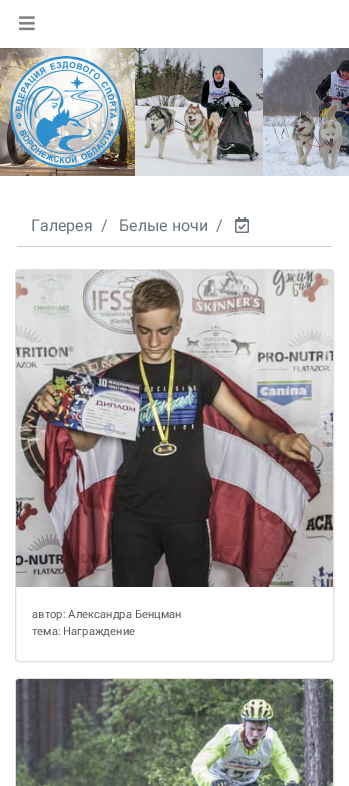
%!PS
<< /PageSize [349 786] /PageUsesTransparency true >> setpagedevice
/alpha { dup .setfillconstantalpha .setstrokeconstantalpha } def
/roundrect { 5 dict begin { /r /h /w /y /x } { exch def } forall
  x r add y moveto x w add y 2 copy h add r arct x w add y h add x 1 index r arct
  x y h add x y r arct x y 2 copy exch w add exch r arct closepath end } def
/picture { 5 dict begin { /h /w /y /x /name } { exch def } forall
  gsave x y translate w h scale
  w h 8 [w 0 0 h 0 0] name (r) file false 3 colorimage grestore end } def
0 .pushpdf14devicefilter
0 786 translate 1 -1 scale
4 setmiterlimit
1 setgray
0 0 349 786 rectfill
(img1.rgb) 19 16 16 15 picture
(img2.rgb) 0 48 135 128 picture
(img3.rgb) 135 48 128 128 picture
(img4.rgb) 263 48 86 128 picture
0.7 alpha
newpath 66 112 56 0 360 arc closepath fill
1 alpha
(img5.rgb) 10 56 112 112 picture
0.796 setgray
17 246 315 1 rectfill
/Roboto-Regular [16 0 0 -16 0 0] selectfont
0.424 0.459 0.49 setrgbcolor
31 231 moveto (Галерея) show
101 231 moveto (/) show
119 231 moveto (Белые ночи) show
216 231 moveto (/) show
(img6.rgb) 235 217 14 16 picture
0.875 setgray
15.5 269.5 318 392 3.5 roundrect stroke
(img7.rgb) 16 270 317 317 picture
/Roboto-Regular [11.25 0 0 -11.25 0 0] selectfont
0.353 setgray
32 618 moveto (автор: Александра Бенцман) show
32 635 moveto (тема: Награждение) show
0.875 setgray
15.5 678.5 318 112 3.5 roundrect stroke
(img8.rgb) 16 679 317 107 picture
.poppdf14devicefilter showpage
